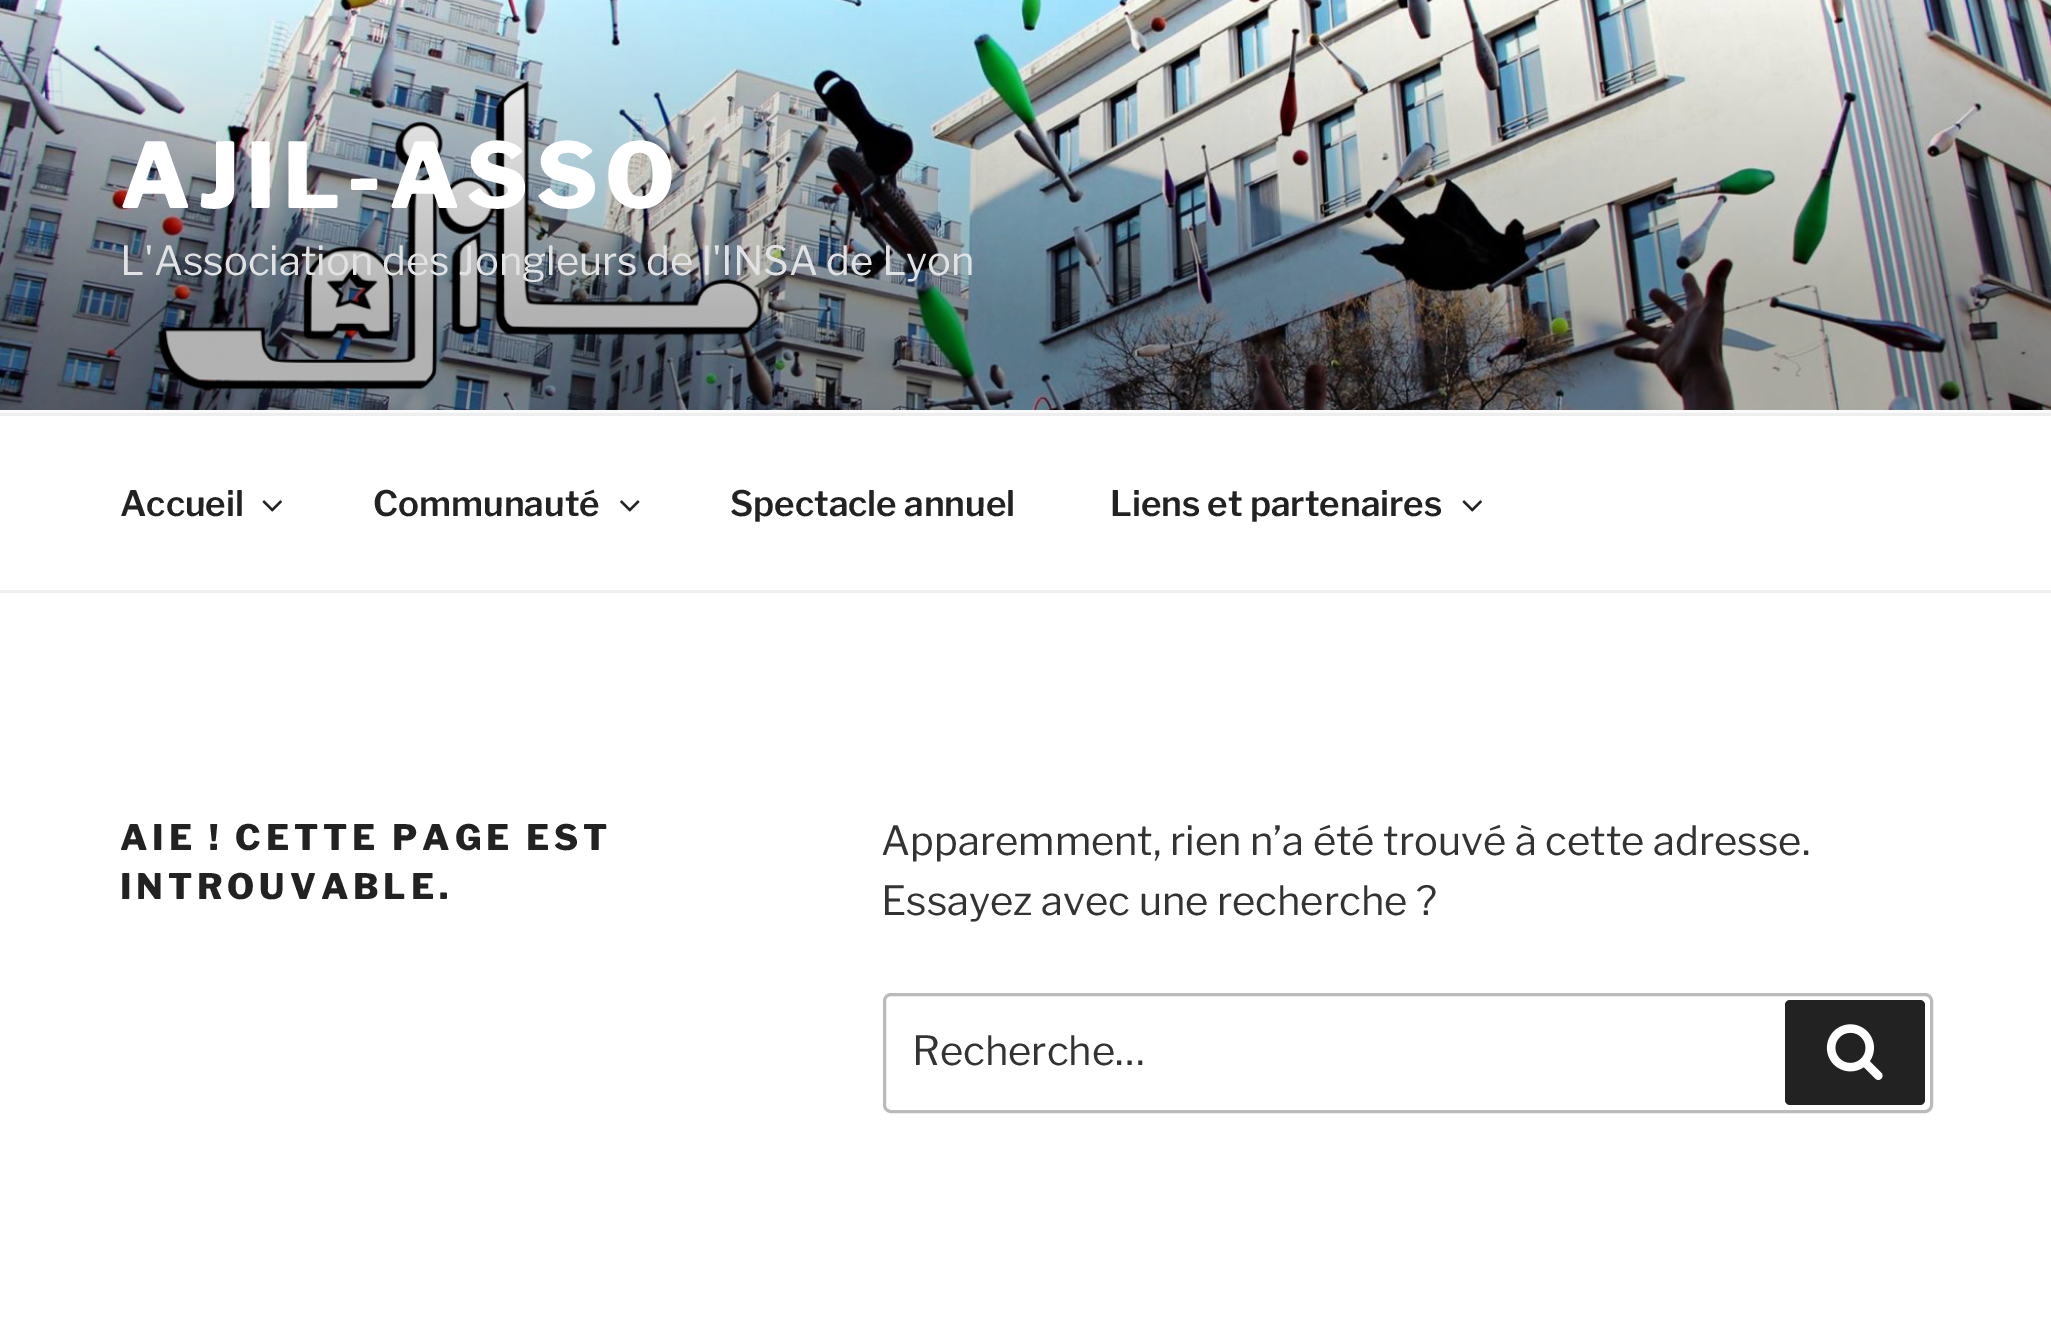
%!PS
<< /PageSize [2051 1335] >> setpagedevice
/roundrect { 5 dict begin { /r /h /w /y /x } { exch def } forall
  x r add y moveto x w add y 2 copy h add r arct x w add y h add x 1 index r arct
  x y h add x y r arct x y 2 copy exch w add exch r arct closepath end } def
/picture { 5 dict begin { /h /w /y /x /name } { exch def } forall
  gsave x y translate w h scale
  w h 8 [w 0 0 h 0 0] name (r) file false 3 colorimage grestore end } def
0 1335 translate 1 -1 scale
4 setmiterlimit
1 setgray
0 0 2051 1335 rectfill
0.98 setgray
0 410 2051 3 rectfill
(img1.rgb) 0 0 2051 410 picture
/LibreFranklin-ExtraBold [90 0 0 -90 0 0] selectfont
1 setgray
120 208 moveto 7.25 0 (AJIL-ASSO) ashow
/LibreFranklin-Regular [40 0 0 -40 0 0] selectfont
0.882 0.886 0.894 setrgbcolor
120 275 moveto (L'Association des Jongleurs de l'INSA de Lyon) show
0.933 setgray
0 413 2051 3 rectfill
0 590 2051 3 rectfill
/LibreFranklin-SemiBold [35 0 0 -35 0 0] selectfont
0.133 setgray
120 516 moveto (Accueil) show
(img2.rgb) 262 500 20 12 picture
373 516 moveto (Communauté) show
(img3.rgb) 620 500 20 12 picture
730 516 moveto (Spectacle annuel) show
1110 516 moveto (Liens et partenaires) show
(img2.rgb) 1462 500 20 12 picture
/LibreFranklin-ExtraBold [35 0 0 -35 0 0] selectfont
120 850 moveto 4.9 0 (AIE ! CETTE PAGE EST) ashow
120 899 moveto 4.9 0 (INTROUVABLE.) ashow
/LibreFranklin-Regular [40 0 0 -40 0 0] selectfont
0.2 setgray
881 855 moveto (Apparemment, rien n’a été trouvé à cette adresse.) show
881 915 moveto (Essayez avec une recherche ?) show
0.733 setgray
3 setlinewidth
884.5 994.5 1047 117 6.5 roundrect stroke
0.2 setgray
912 1065 moveto (Recherche…) show
0.133 setgray
1785 1000 140 105 5 roundrect fill
(img4.rgb) 1826 1024 57 56 picture
showpage
